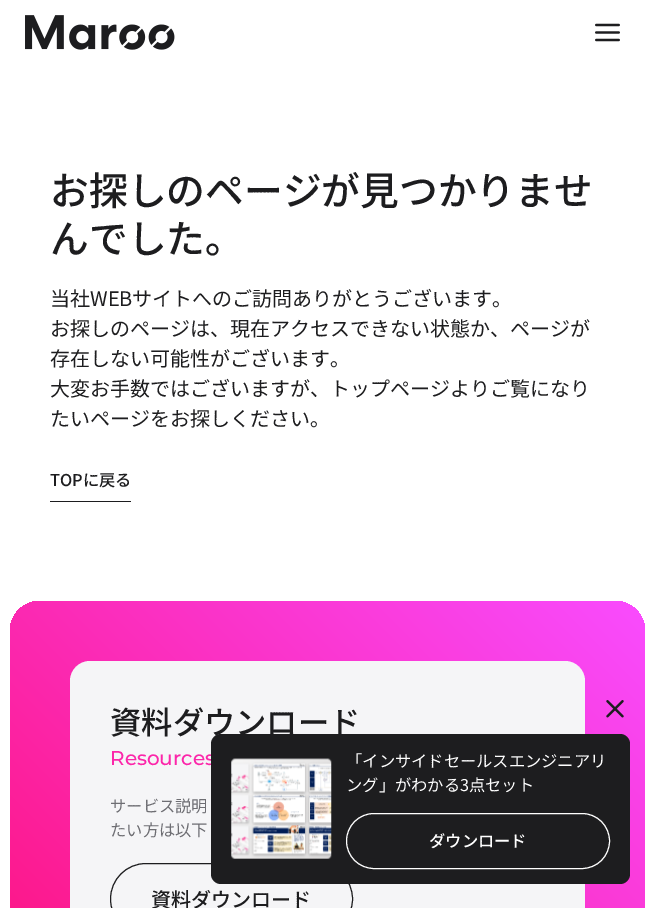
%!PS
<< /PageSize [655 908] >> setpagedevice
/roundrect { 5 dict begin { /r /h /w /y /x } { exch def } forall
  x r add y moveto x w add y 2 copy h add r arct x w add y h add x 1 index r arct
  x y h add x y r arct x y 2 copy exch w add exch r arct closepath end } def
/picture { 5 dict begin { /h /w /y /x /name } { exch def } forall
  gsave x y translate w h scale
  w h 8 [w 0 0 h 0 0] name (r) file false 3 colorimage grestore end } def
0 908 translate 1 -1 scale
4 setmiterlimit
1 setgray
0 0 655 908 rectfill
(img1.rgb) 25 15 150 35 picture
(img2.rgb) 595 23 25 19 picture
/NotoSansJP-Medium [38.75 0 0 -38.75 0 0] selectfont
0.114 0.114 0.122 setrgbcolor
50 205 moveto (お探しのページが見つかりませ) show
50 253 moveto (んでした。) show
/NotoSansJP-Regular [20 0 0 -20 0 0] selectfont
50 306 moveto (当社WEBサイトへのご訪問ありがとうございます。) show
50 336 moveto (お探しのページは、現在アクセスできない状態か、ページが) show
50 366 moveto (存在しない可能性がございます。) show
50 396 moveto (大変お手数ではございますが、トップページよりご覧になり) show
50 426 moveto (たいページをお探しください。) show
/NotoSansJP-Medium [16.25 0 0 -16.25 0 0] selectfont
50 486 moveto (TOPに戻る) show
50 501 81 1 rectfill
gsave 10 601 635 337 30 roundrect clip newpath
<< /ShadingType 2 /ColorSpace /DeviceRGB /Coords [-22 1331 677 633] /Extend [true true] /Function << /FunctionType 2 /Domain [0 1] /C0 [1 0 0.333] /C1 [0.976 0.298 1] /N 1 >> >> shfill grestore
0.961 0.961 0.969 setrgbcolor
70 661 515 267 20 roundrect fill
/NotoSansJP-Medium [31.25 0 0 -31.25 0 0] selectfont
0.114 0.114 0.122 setrgbcolor
110 734 moveto (資料ダウンロード) show
/Montserrat-Thin [20 0 0 -20 0 0] selectfont
0.988 0.149 0.667 setrgbcolor
110 765 moveto (Resources) show
/NotoSansJP-Regular [16.25 0 0 -16.25 0 0] selectfont
0.431 0.431 0.451 setrgbcolor
110 812 moveto (サービス説明) show
110 836 moveto (たい方は以下) show
0.114 0.114 0.122 setrgbcolor
110.5 863.5 242 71 35.5 roundrect stroke
/NotoSansJP-Medium [20 0 0 -20 0 0] selectfont
151 907 moveto (資料ダウンロード) show
(img3.rgb) 606 700 18 18 picture
211 734 419 150 10 roundrect fill
(img4.rgb) 231 758 101 101 picture
/NotoSansJP-Regular [16.25 0 0 -16.25 0 0] selectfont
1 setgray
346 767 moveto (「インサイドセールスエンジニアリ) show
346 791 moveto (ング」がわかる3点セット) show
346.5 813.5 263 55 27.5 roundrect stroke
/NotoSansJP-Medium [16.25 0 0 -16.25 0 0] selectfont
429 847 moveto (ダウンロード) show
showpage
